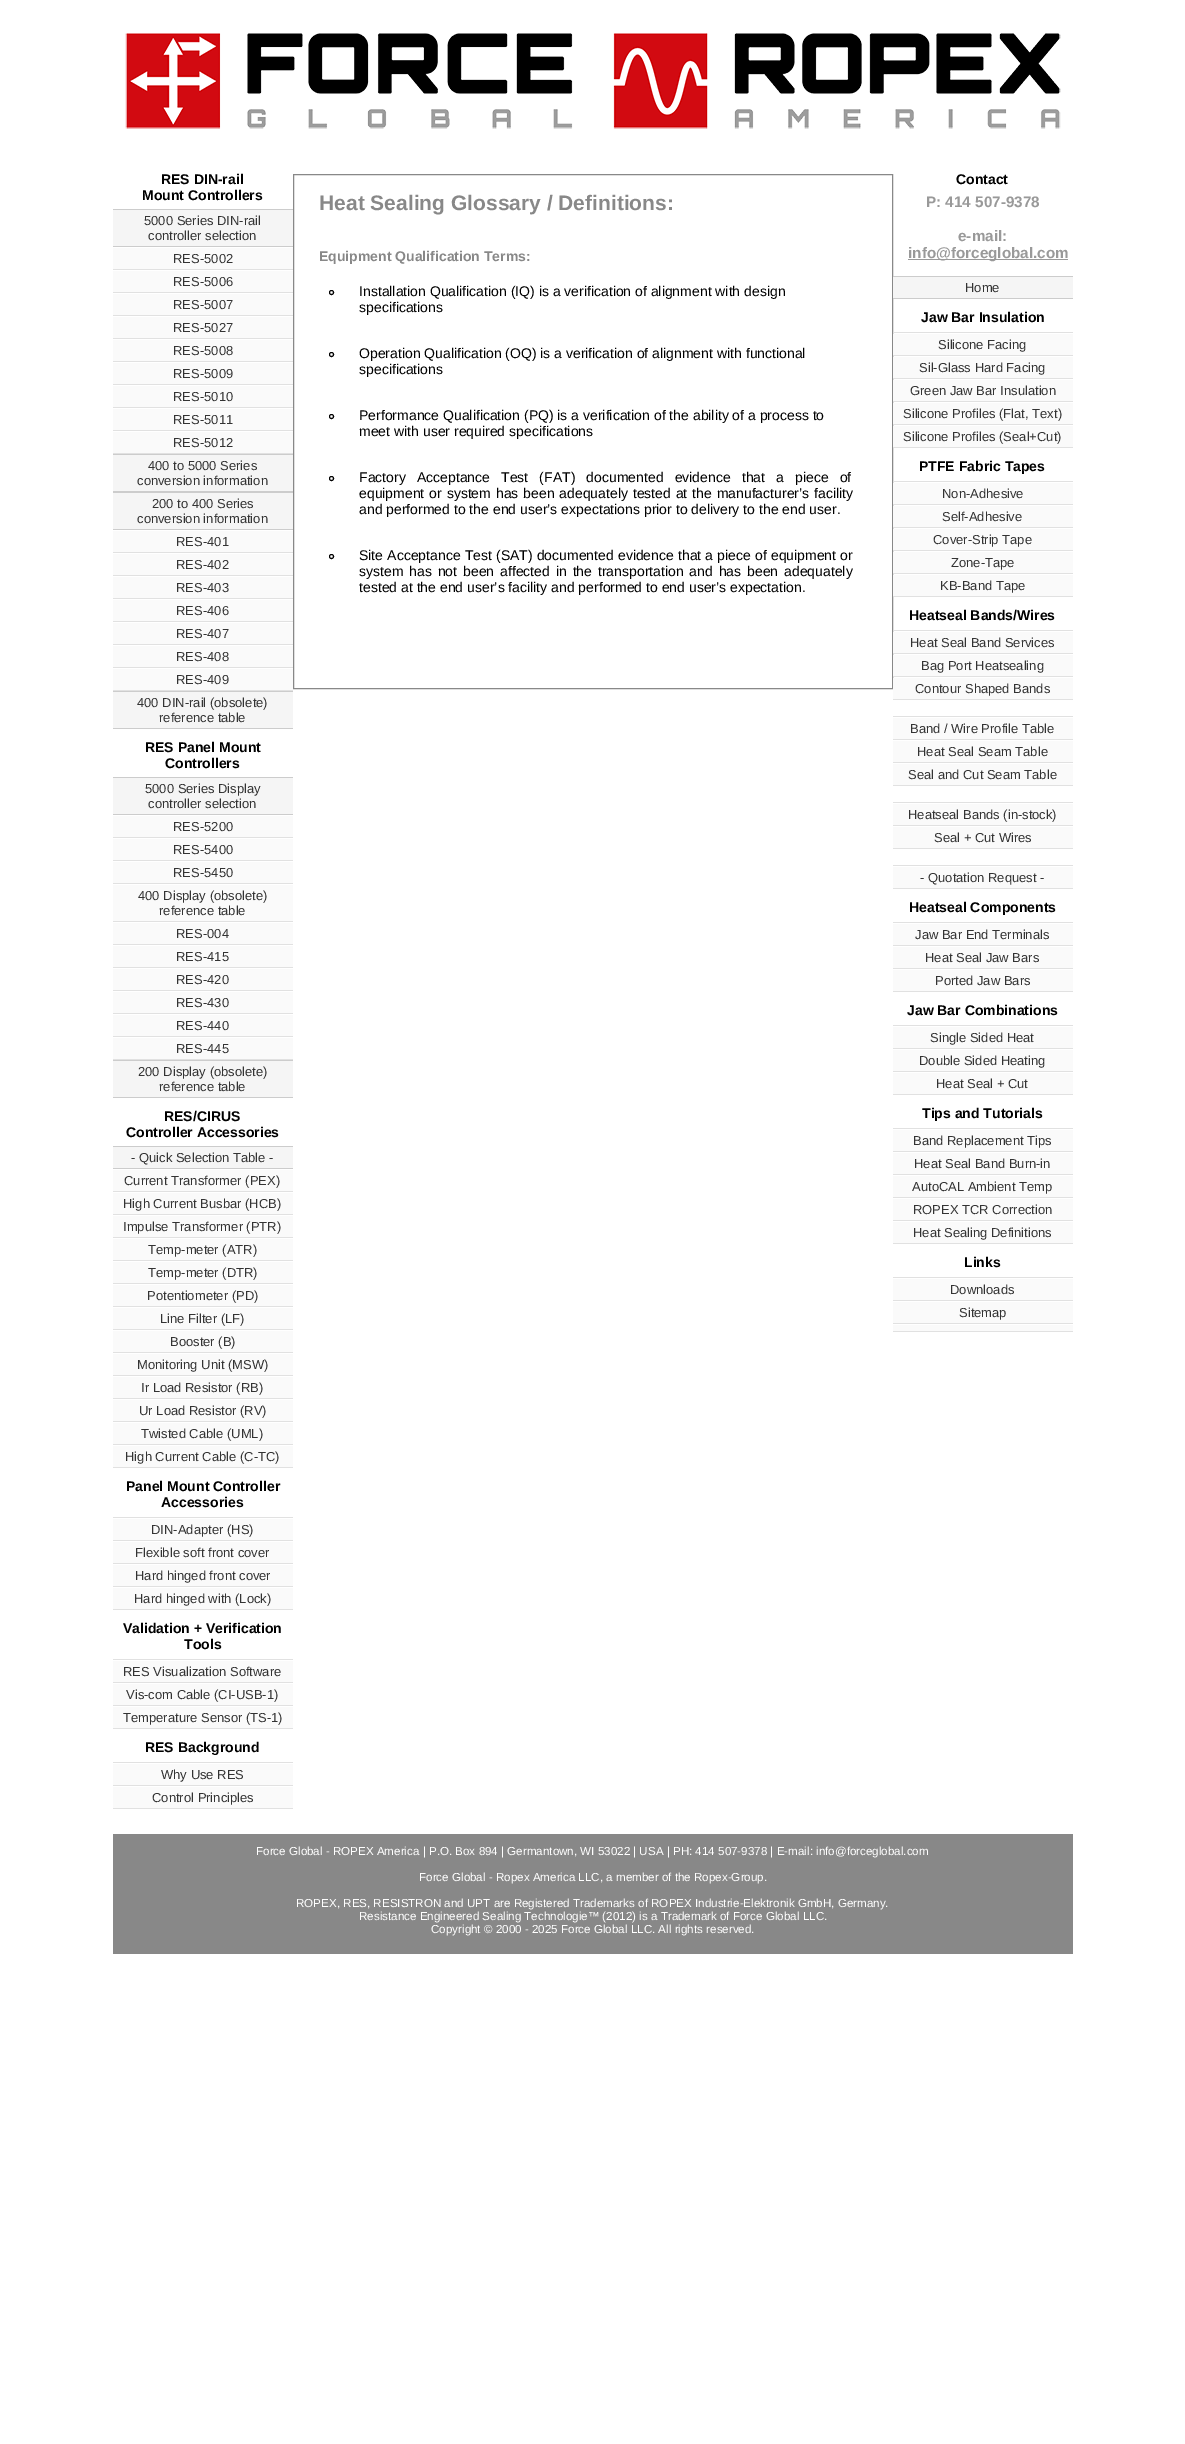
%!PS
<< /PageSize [1185 2444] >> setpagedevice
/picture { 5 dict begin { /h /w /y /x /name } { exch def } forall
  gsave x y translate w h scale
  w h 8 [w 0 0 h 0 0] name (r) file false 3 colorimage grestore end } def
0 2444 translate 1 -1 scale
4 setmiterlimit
1 setgray
0 0 1185 2444 rectfill
(img1.rgb) 125 33 936 96 picture
/LiberationSans-Bold [14 0 0 -14 0 0] selectfont
0 setgray
161 184 moveto (RES DIN-rail) show
142 200 moveto (Mount Controllers) show
0.8 setgray
113 209 180 1 rectfill
113 246 180 1 rectfill
0.961 setgray
113 210 180 36 rectfill
/LiberationSans-Regular [13 0 0 -13 0 0] selectfont
0.2 setgray
144 225 moveto (5000 Series DIN-rail) show
148 240 moveto (controller selection) show
0.882 setgray
113 269 180 1 rectfill
0.98 setgray
113 248 180 21 rectfill
0.2 setgray
173 263 moveto (RES-5002) show
0.882 setgray
113 292 180 1 rectfill
0.98 setgray
113 271 180 21 rectfill
0.2 setgray
173 286 moveto (RES-5006) show
0.882 setgray
113 315 180 1 rectfill
0.98 setgray
113 294 180 21 rectfill
0.2 setgray
173 309 moveto (RES-5007) show
0.882 setgray
113 338 180 1 rectfill
0.98 setgray
113 317 180 21 rectfill
0.2 setgray
173 332 moveto (RES-5027) show
0.882 setgray
113 361 180 1 rectfill
0.98 setgray
113 340 180 21 rectfill
0.2 setgray
173 355 moveto (RES-5008) show
0.882 setgray
113 384 180 1 rectfill
0.98 setgray
113 363 180 21 rectfill
0.2 setgray
173 378 moveto (RES-5009) show
0.882 setgray
113 407 180 1 rectfill
0.98 setgray
113 386 180 21 rectfill
0.2 setgray
173 401 moveto (RES-5010) show
0.882 setgray
113 430 180 1 rectfill
0.98 setgray
113 409 180 21 rectfill
0.2 setgray
173 424 moveto (RES-5011) show
0.882 setgray
113 453 180 1 rectfill
0.98 setgray
113 432 180 21 rectfill
0.2 setgray
173 447 moveto (RES-5012) show
0.8 setgray
113 454 180 1 rectfill
113 491 180 2 rectfill
0.961 setgray
113 455 180 36 rectfill
0.2 setgray
148 470 moveto (400 to 5000 Series) show
137 485 moveto (conversion information) show
0.8 setgray
113 529 180 1 rectfill
0.961 setgray
113 493 180 36 rectfill
0.2 setgray
152 508 moveto (200 to 400 Series) show
137 523 moveto (conversion information) show
0.882 setgray
113 552 180 1 rectfill
0.98 setgray
113 531 180 21 rectfill
0.2 setgray
176 546 moveto (RES-401) show
0.882 setgray
113 575 180 1 rectfill
0.98 setgray
113 554 180 21 rectfill
0.2 setgray
176 569 moveto (RES-402) show
0.882 setgray
113 598 180 1 rectfill
0.98 setgray
113 577 180 21 rectfill
0.2 setgray
176 592 moveto (RES-403) show
0.882 setgray
113 621 180 1 rectfill
0.98 setgray
113 600 180 21 rectfill
0.2 setgray
176 615 moveto (RES-406) show
0.882 setgray
113 644 180 1 rectfill
0.98 setgray
113 623 180 21 rectfill
0.2 setgray
176 638 moveto (RES-407) show
0.882 setgray
113 667 180 1 rectfill
0.98 setgray
113 646 180 21 rectfill
0.2 setgray
176 661 moveto (RES-408) show
0.882 setgray
113 690 180 1 rectfill
0.98 setgray
113 669 180 21 rectfill
0.2 setgray
176 684 moveto (RES-409) show
0.8 setgray
113 691 180 1 rectfill
113 728 180 1 rectfill
0.961 setgray
113 692 180 36 rectfill
0.2 setgray
137 707 moveto (400 DIN-rail \(obsolete\)) show
159 722 moveto (reference table) show
/LiberationSans-Bold [14 0 0 -14 0 0] selectfont
0 setgray
145 752 moveto (RES Panel Mount) show
165 768 moveto (Controllers) show
0.8 setgray
113 777 180 1 rectfill
113 814 180 1 rectfill
0.961 setgray
113 778 180 36 rectfill
/LiberationSans-Regular [13 0 0 -13 0 0] selectfont
0.2 setgray
145 793 moveto (5000 Series Display) show
148 808 moveto (controller selection) show
0.882 setgray
113 837 180 1 rectfill
0.98 setgray
113 816 180 21 rectfill
0.2 setgray
173 831 moveto (RES-5200) show
0.882 setgray
113 860 180 1 rectfill
0.98 setgray
113 839 180 21 rectfill
0.2 setgray
173 854 moveto (RES-5400) show
0.882 setgray
113 883 180 1 rectfill
0.98 setgray
113 862 180 21 rectfill
0.2 setgray
173 877 moveto (RES-5450) show
0.882 setgray
113 921 180 1 rectfill
0.98 setgray
113 885 180 36 rectfill
0.2 setgray
138 900 moveto (400 Display \(obsolete\)) show
159 915 moveto (reference table) show
0.882 setgray
113 944 180 1 rectfill
0.98 setgray
113 923 180 21 rectfill
0.2 setgray
176 938 moveto (RES-004) show
0.882 setgray
113 967 180 1 rectfill
0.98 setgray
113 946 180 21 rectfill
0.2 setgray
176 961 moveto (RES-415) show
0.882 setgray
113 990 180 1 rectfill
0.98 setgray
113 969 180 21 rectfill
0.2 setgray
176 984 moveto (RES-420) show
0.882 setgray
113 1013 180 1 rectfill
0.98 setgray
113 992 180 21 rectfill
0.2 setgray
176 1007 moveto (RES-430) show
0.882 setgray
113 1036 180 1 rectfill
0.98 setgray
113 1015 180 21 rectfill
0.2 setgray
176 1030 moveto (RES-440) show
0.882 setgray
113 1059 180 1 rectfill
0.98 setgray
113 1038 180 21 rectfill
0.2 setgray
176 1053 moveto (RES-445) show
0.8 setgray
113 1060 180 1 rectfill
113 1097 180 1 rectfill
0.961 setgray
113 1061 180 36 rectfill
0.2 setgray
138 1076 moveto (200 Display \(obsolete\)) show
159 1091 moveto (reference table) show
/LiberationSans-Bold [14 0 0 -14 0 0] selectfont
0 setgray
164 1121 moveto (RES/CIRUS) show
126 1137 moveto (Controller Accessories) show
0.8 setgray
113 1146 180 1 rectfill
113 1168 180 1 rectfill
0.961 setgray
113 1147 180 21 rectfill
/LiberationSans-Regular [13 0 0 -13 0 0] selectfont
0.2 setgray
131 1162 moveto (- Quick Selection Table -) show
0.882 setgray
113 1191 180 1 rectfill
0.98 setgray
113 1170 180 21 rectfill
0.2 setgray
124 1185 moveto (Current Transformer \(PEX\)) show
0.882 setgray
113 1214 180 1 rectfill
0.98 setgray
113 1193 180 21 rectfill
0.2 setgray
123 1208 moveto (High Current Busbar \(HCB\)) show
0.882 setgray
113 1237 180 1 rectfill
0.98 setgray
113 1216 180 21 rectfill
0.2 setgray
123 1231 moveto (Impulse Transformer \(PTR\)) show
0.882 setgray
113 1260 180 1 rectfill
0.98 setgray
113 1239 180 21 rectfill
0.2 setgray
148 1254 moveto (Temp-meter \(ATR\)) show
0.882 setgray
113 1283 180 1 rectfill
0.98 setgray
113 1262 180 21 rectfill
0.2 setgray
148 1277 moveto (Temp-meter \(DTR\)) show
0.882 setgray
113 1306 180 1 rectfill
0.98 setgray
113 1285 180 21 rectfill
0.2 setgray
147 1300 moveto (Potentiometer \(PD\)) show
0.882 setgray
113 1329 180 1 rectfill
0.98 setgray
113 1308 180 21 rectfill
0.2 setgray
160 1323 moveto (Line Filter \(LF\)) show
0.882 setgray
113 1352 180 1 rectfill
0.98 setgray
113 1331 180 21 rectfill
0.2 setgray
170 1346 moveto (Booster \(B\)) show
0.882 setgray
113 1375 180 1 rectfill
0.98 setgray
113 1354 180 21 rectfill
0.2 setgray
137 1369 moveto (Monitoring Unit \(MSW\)) show
0.882 setgray
113 1398 180 1 rectfill
0.98 setgray
113 1377 180 21 rectfill
0.2 setgray
141 1392 moveto (Ir Load Resistor \(RB\)) show
0.882 setgray
113 1421 180 1 rectfill
0.98 setgray
113 1400 180 21 rectfill
0.2 setgray
139 1415 moveto (Ur Load Resistor \(RV\)) show
0.882 setgray
113 1444 180 1 rectfill
0.98 setgray
113 1423 180 21 rectfill
0.2 setgray
141 1438 moveto (Twisted Cable \(UML\)) show
0.882 setgray
113 1467 180 1 rectfill
0.98 setgray
113 1446 180 21 rectfill
0.2 setgray
125 1461 moveto (High Current Cable \(C-TC\)) show
/LiberationSans-Bold [14 0 0 -14 0 0] selectfont
0 setgray
126 1491 moveto (Panel Mount Controller) show
161 1507 moveto (Accessories) show
0.882 setgray
113 1517 180 1 rectfill
113 1540 180 1 rectfill
0.98 setgray
113 1519 180 21 rectfill
/LiberationSans-Regular [13 0 0 -13 0 0] selectfont
0.2 setgray
151 1534 moveto (DIN-Adapter \(HS\)) show
0.882 setgray
113 1563 180 1 rectfill
0.98 setgray
113 1542 180 21 rectfill
0.2 setgray
135 1557 moveto (Flexible soft front cover) show
0.882 setgray
113 1586 180 1 rectfill
0.98 setgray
113 1565 180 21 rectfill
0.2 setgray
135 1580 moveto (Hard hinged front cover) show
0.882 setgray
113 1609 180 1 rectfill
0.98 setgray
113 1588 180 21 rectfill
0.2 setgray
134 1603 moveto (Hard hinged with \(Lock\)) show
/LiberationSans-Bold [14 0 0 -14 0 0] selectfont
0 setgray
123 1633 moveto (Validation + Verification) show
184 1649 moveto (Tools) show
0.882 setgray
113 1659 180 1 rectfill
113 1682 180 1 rectfill
0.98 setgray
113 1661 180 21 rectfill
/LiberationSans-Regular [13 0 0 -13 0 0] selectfont
0.2 setgray
123 1676 moveto (RES Visualization Software) show
0.882 setgray
113 1705 180 1 rectfill
0.98 setgray
113 1684 180 21 rectfill
0.2 setgray
126 1699 moveto (Vis-com Cable \(CI-USB-1\)) show
0.882 setgray
113 1728 180 1 rectfill
0.98 setgray
113 1707 180 21 rectfill
0.2 setgray
123 1722 moveto (Temperature Sensor \(TS-1\)) show
/LiberationSans-Bold [14 0 0 -14 0 0] selectfont
0 setgray
145 1752 moveto (RES Background) show
0.882 setgray
113 1762 180 1 rectfill
113 1785 180 1 rectfill
0.98 setgray
113 1764 180 21 rectfill
/LiberationSans-Regular [13 0 0 -13 0 0] selectfont
0.2 setgray
161 1779 moveto (Why Use RES) show
0.882 setgray
113 1808 180 1 rectfill
0.98 setgray
113 1787 180 21 rectfill
0.2 setgray
152 1802 moveto (Control Principles) show
0.533 setgray
293.5 174.5 599 514 rectstroke
/LiberationSans-Bold [21 0 0 -21 0 0] selectfont
319 210 moveto (Heat Sealing Glossary / Definitions:) show
/LiberationSans-Bold [14 0 0 -14 0 0] selectfont
319 261 moveto (Equipment Qualification Terms:) show
0 setgray
newpath 331.5 292.5 2 0 360 arc closepath stroke
/LiberationSans-Regular [14 0 0 -14 0 0] selectfont
359 296 moveto (Installation Qualification \(IQ\) is a verification of alignment with design) show
359 312 moveto (specifications) show
newpath 331.5 354.5 2 0 360 arc closepath stroke
359 358 moveto (Operation Qualification \(OQ\) is a verification of alignment with functional) show
359 374 moveto (specifications) show
newpath 331.5 416.5 2 0 360 arc closepath stroke
359 420 moveto (Performance Qualification \(PQ\) is a verification of the ability of a process to) show
359 436 moveto (meet with user required specifications) show
newpath 331.5 478.5 2 0 360 arc closepath stroke
359 482 moveto 7.25 0 32 (Factory Acceptance Test \(FAT\) documented evidence that a piece of) widthshow
359 498 moveto 1 0 32 (equipment or system has been adequately tested at the manufacturer’s facility) widthshow
359 514 moveto (and performed to the end user’s expectations prior to delivery to the end user.) show
newpath 331.5 556.5 2 0 360 arc closepath stroke
359 560 moveto 0.25 0 32 (Site Acceptance Test \(SAT\) documented evidence that a piece of equipment or) widthshow
359 576 moveto 2 0 32 (system has not been affected in the transportation and has been adequately) widthshow
359 592 moveto (tested at the end user’s facility and performed to end user’s expectation.) show
/LiberationSans-Bold [14 0 0 -14 0 0] selectfont
956 184 moveto (Contact) show
/LiberationSans-Bold [15.25 0 0 -15.25 0 0] selectfont
0.6 setgray
926 207 moveto (P: 414 507-9378) show
958 241 moveto (e-mail:) show
908 259 160 1 rectfill
908 258 moveto (info@forceglobal.com) show
0.8 setgray
893 276 180 1 rectfill
893 298 180 1 rectfill
0.961 setgray
893 277 180 21 rectfill
/LiberationSans-Regular [13 0 0 -13 0 0] selectfont
0.2 setgray
965 292 moveto (Home) show
/LiberationSans-Bold [14 0 0 -14 0 0] selectfont
0 setgray
921 322 moveto (Jaw Bar Insulation) show
0.882 setgray
893 332 180 1 rectfill
893 355 180 1 rectfill
0.98 setgray
893 334 180 21 rectfill
/LiberationSans-Regular [13 0 0 -13 0 0] selectfont
0.2 setgray
938 349 moveto (Silicone Facing) show
0.882 setgray
893 378 180 1 rectfill
0.98 setgray
893 357 180 21 rectfill
0.2 setgray
919 372 moveto (Sil-Glass Hard Facing) show
0.882 setgray
893 401 180 1 rectfill
0.98 setgray
893 380 180 21 rectfill
0.2 setgray
910 395 moveto (Green Jaw Bar Insulation) show
0.882 setgray
893 424 180 1 rectfill
0.98 setgray
893 403 180 21 rectfill
0.2 setgray
903 418 moveto (Silicone Profiles \(Flat, Text\)) show
0.882 setgray
893 447 180 1 rectfill
0.98 setgray
893 426 180 21 rectfill
0.2 setgray
903 441 moveto (Silicone Profiles \(Seal+Cut\)) show
/LiberationSans-Bold [14 0 0 -14 0 0] selectfont
0 setgray
919 471 moveto (PTFE Fabric Tapes) show
0.882 setgray
893 481 180 1 rectfill
893 504 180 1 rectfill
0.98 setgray
893 483 180 21 rectfill
/LiberationSans-Regular [13 0 0 -13 0 0] selectfont
0.2 setgray
942 498 moveto (Non-Adhesive) show
0.882 setgray
893 527 180 1 rectfill
0.98 setgray
893 506 180 21 rectfill
0.2 setgray
942 521 moveto (Self-Adhesive) show
0.882 setgray
893 550 180 1 rectfill
0.98 setgray
893 529 180 21 rectfill
0.2 setgray
933 544 moveto (Cover-Strip Tape) show
0.882 setgray
893 573 180 1 rectfill
0.98 setgray
893 552 180 21 rectfill
0.2 setgray
951 567 moveto (Zone-Tape) show
0.882 setgray
893 596 180 1 rectfill
0.98 setgray
893 575 180 21 rectfill
0.2 setgray
940 590 moveto (KB-Band Tape) show
/LiberationSans-Bold [14 0 0 -14 0 0] selectfont
0 setgray
909 620 moveto (Heatseal Bands/Wires) show
0.882 setgray
893 630 180 1 rectfill
893 653 180 1 rectfill
0.98 setgray
893 632 180 21 rectfill
/LiberationSans-Regular [13 0 0 -13 0 0] selectfont
0.2 setgray
910 647 moveto (Heat Seal Band Services) show
0.882 setgray
893 676 180 1 rectfill
0.98 setgray
893 655 180 21 rectfill
0.2 setgray
921 670 moveto (Bag Port Heatsealing) show
0.882 setgray
893 699 180 1 rectfill
0.98 setgray
893 678 180 21 rectfill
0.2 setgray
915 693 moveto (Contour Shaped Bands) show
0.882 setgray
893 716 180 1 rectfill
893 739 180 1 rectfill
0.98 setgray
893 718 180 21 rectfill
0.2 setgray
910 733 moveto (Band / Wire Profile Table) show
0.882 setgray
893 762 180 1 rectfill
0.98 setgray
893 741 180 21 rectfill
0.2 setgray
917 756 moveto (Heat Seal Seam Table) show
0.882 setgray
893 785 180 1 rectfill
0.98 setgray
893 764 180 21 rectfill
0.2 setgray
908 779 moveto (Seal and Cut Seam Table) show
0.882 setgray
893 802 180 1 rectfill
893 825 180 1 rectfill
0.98 setgray
893 804 180 21 rectfill
0.2 setgray
908 819 moveto (Heatseal Bands \(in-stock\)) show
0.882 setgray
893 848 180 1 rectfill
0.98 setgray
893 827 180 21 rectfill
0.2 setgray
934 842 moveto (Seal + Cut Wires) show
0.882 setgray
893 865 180 1 rectfill
893 888 180 1 rectfill
0.98 setgray
893 867 180 21 rectfill
0.2 setgray
920 882 moveto (- Quotation Request -) show
/LiberationSans-Bold [14 0 0 -14 0 0] selectfont
0 setgray
909 912 moveto (Heatseal Components) show
0.882 setgray
893 922 180 1 rectfill
893 945 180 1 rectfill
0.98 setgray
893 924 180 21 rectfill
/LiberationSans-Regular [13 0 0 -13 0 0] selectfont
0.2 setgray
915 939 moveto (Jaw Bar End Terminals) show
0.882 setgray
893 968 180 1 rectfill
0.98 setgray
893 947 180 21 rectfill
0.2 setgray
925 962 moveto (Heat Seal Jaw Bars) show
0.882 setgray
893 991 180 1 rectfill
0.98 setgray
893 970 180 21 rectfill
0.2 setgray
935 985 moveto (Ported Jaw Bars) show
/LiberationSans-Bold [14 0 0 -14 0 0] selectfont
0 setgray
907 1015 moveto (Jaw Bar Combinations) show
0.882 setgray
893 1025 180 1 rectfill
893 1048 180 1 rectfill
0.98 setgray
893 1027 180 21 rectfill
/LiberationSans-Regular [13 0 0 -13 0 0] selectfont
0.2 setgray
930 1042 moveto (Single Sided Heat) show
0.882 setgray
893 1071 180 1 rectfill
0.98 setgray
893 1050 180 21 rectfill
0.2 setgray
919 1065 moveto (Double Sided Heating) show
0.882 setgray
893 1094 180 1 rectfill
0.98 setgray
893 1073 180 21 rectfill
0.2 setgray
936 1088 moveto (Heat Seal + Cut) show
/LiberationSans-Bold [14 0 0 -14 0 0] selectfont
0 setgray
922 1118 moveto (Tips and Tutorials) show
0.882 setgray
893 1128 180 1 rectfill
893 1151 180 1 rectfill
0.98 setgray
893 1130 180 21 rectfill
/LiberationSans-Regular [13 0 0 -13 0 0] selectfont
0.2 setgray
913 1145 moveto (Band Replacement Tips) show
0.882 setgray
893 1174 180 1 rectfill
0.98 setgray
893 1153 180 21 rectfill
0.2 setgray
914 1168 moveto (Heat Seal Band Burn-in) show
0.882 setgray
893 1197 180 1 rectfill
0.98 setgray
893 1176 180 21 rectfill
0.2 setgray
912 1191 moveto (AutoCAL Ambient Temp) show
0.882 setgray
893 1220 180 1 rectfill
0.98 setgray
893 1199 180 21 rectfill
0.2 setgray
913 1214 moveto (ROPEX TCR Correction) show
0.882 setgray
893 1243 180 1 rectfill
0.98 setgray
893 1222 180 21 rectfill
0.2 setgray
913 1237 moveto (Heat Sealing Definitions) show
/LiberationSans-Bold [14 0 0 -14 0 0] selectfont
0 setgray
964 1267 moveto (Links) show
0.882 setgray
893 1277 180 1 rectfill
893 1300 180 1 rectfill
0.98 setgray
893 1279 180 21 rectfill
/LiberationSans-Regular [13 0 0 -13 0 0] selectfont
0.2 setgray
950 1294 moveto (Downloads) show
0.882 setgray
893 1323 180 1 rectfill
0.98 setgray
893 1302 180 21 rectfill
0.2 setgray
959 1317 moveto (Sitemap) show
0.882 setgray
893 1331 180 1 rectfill
0.98 setgray
893 1325 180 6 rectfill
0.533 setgray
113 1834 960 120 rectfill
/LiberationSans-Regular [11.62 0 0 -11.62 0 0] selectfont
1 setgray
256 1855 moveto (Force Global - ROPEX America | P.O. Box 894 | Germantown, WI 53022 | USA | PH: 414 507-9378 | E-mail: info@forceglobal.com) show
419 1881 moveto (Force Global - Ropex America LLC, a member of the Ropex-Group.) show
296 1907 moveto (ROPEX, RES, RESISTRON and UPT are Registered Trademarks of ROPEX Industrie-Elektronik GmbH, Germany.) show
359 1920 moveto (Resistance Engineered Sealing Technologie™ \(2012\) is a Trademark of Force Global LLC.) show
431 1933 moveto (Copyright © 2000 - 2025 Force Global LLC. All rights reserved.) show
showpage
